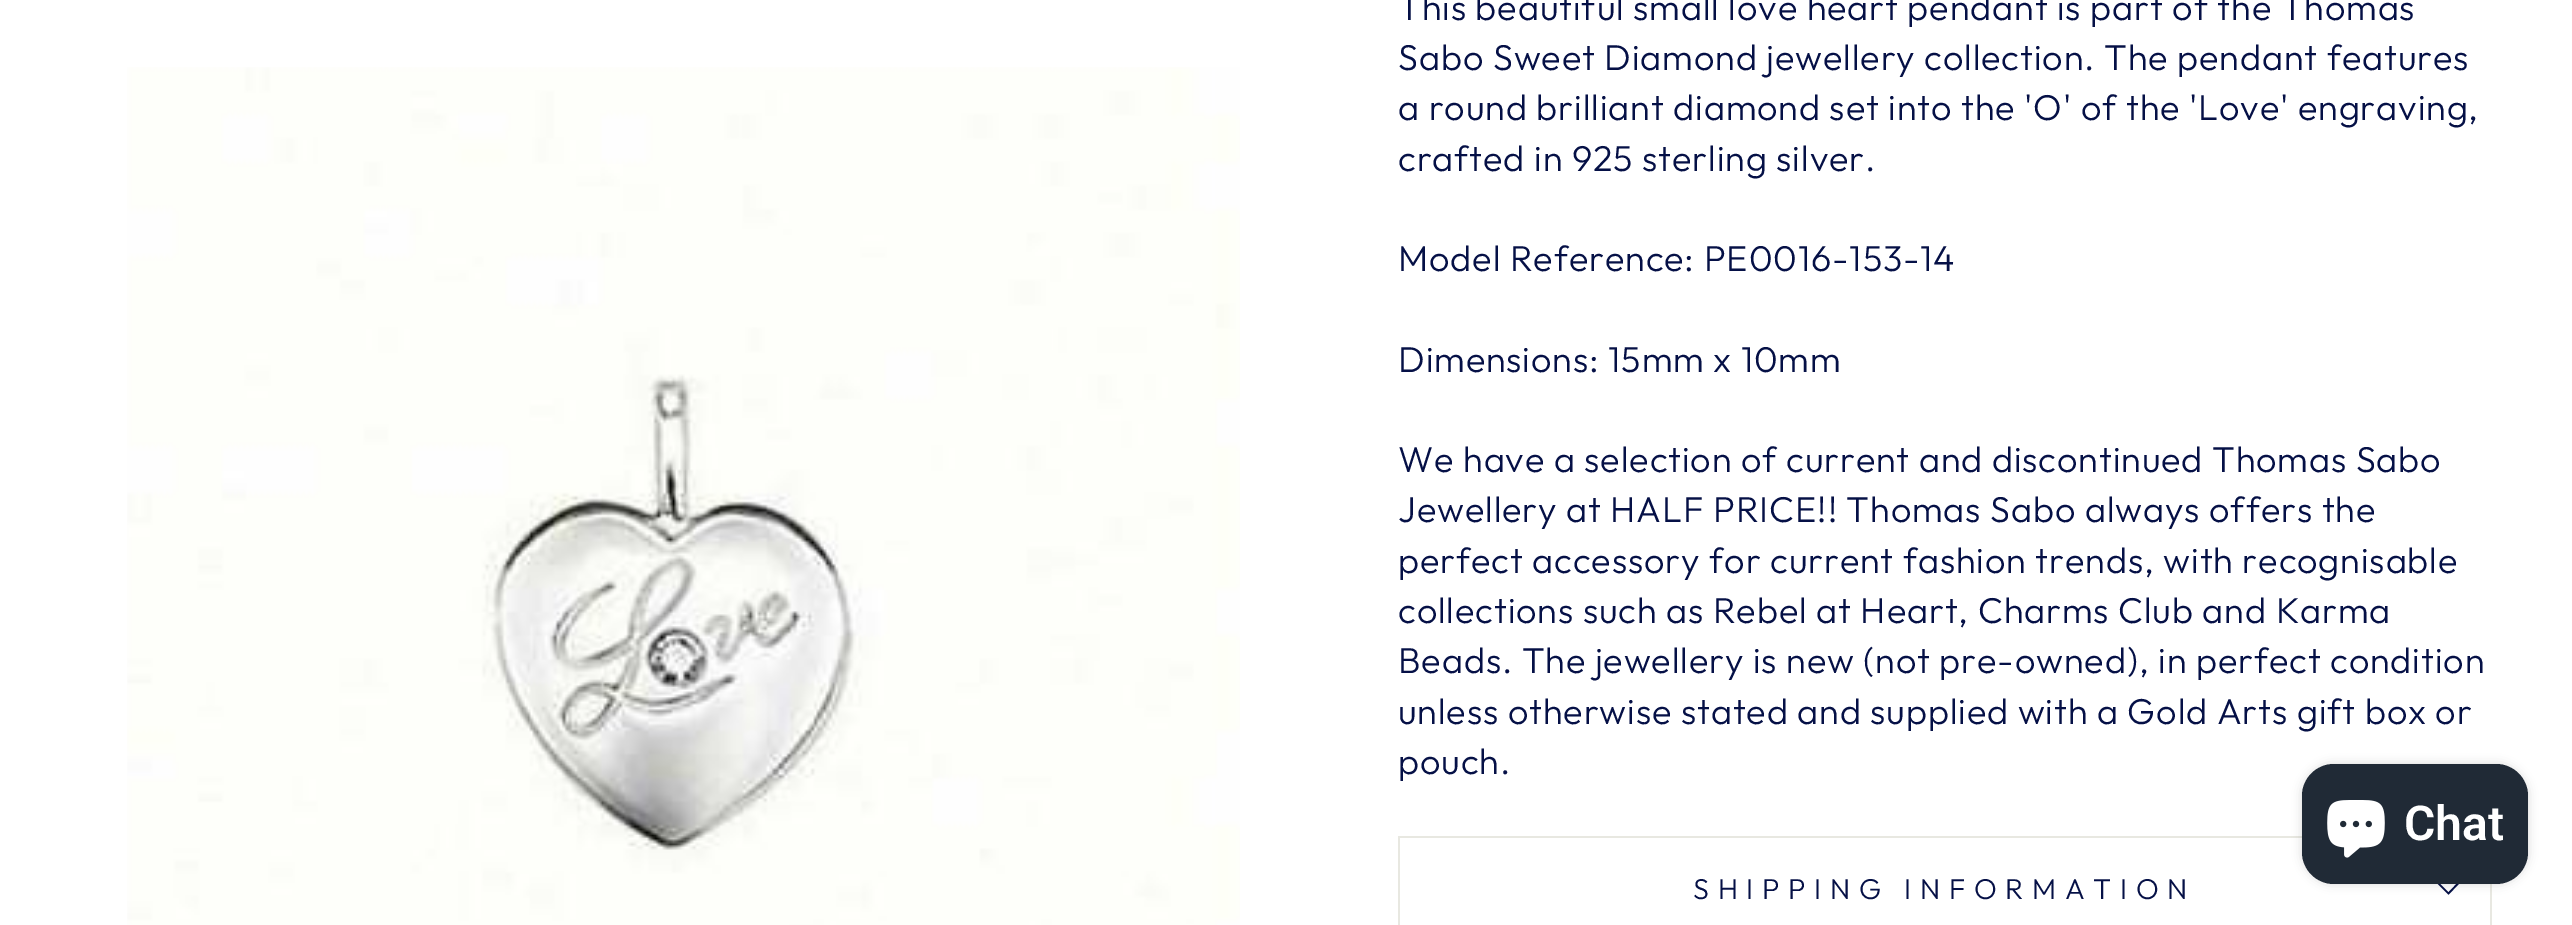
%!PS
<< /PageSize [2572 925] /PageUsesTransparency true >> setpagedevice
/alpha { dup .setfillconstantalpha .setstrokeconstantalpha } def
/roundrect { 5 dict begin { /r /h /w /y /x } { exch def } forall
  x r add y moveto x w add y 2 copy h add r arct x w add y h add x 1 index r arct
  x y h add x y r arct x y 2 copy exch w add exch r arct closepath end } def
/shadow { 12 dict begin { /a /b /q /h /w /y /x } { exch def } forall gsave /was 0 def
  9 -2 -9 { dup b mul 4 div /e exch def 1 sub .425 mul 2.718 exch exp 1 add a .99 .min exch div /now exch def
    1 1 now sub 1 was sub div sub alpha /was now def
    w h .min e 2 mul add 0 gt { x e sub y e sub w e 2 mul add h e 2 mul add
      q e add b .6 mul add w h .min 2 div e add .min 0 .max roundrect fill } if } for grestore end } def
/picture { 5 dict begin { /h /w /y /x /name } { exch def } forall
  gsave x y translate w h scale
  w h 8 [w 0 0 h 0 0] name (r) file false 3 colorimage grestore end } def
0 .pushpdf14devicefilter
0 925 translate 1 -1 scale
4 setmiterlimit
1 setgray
0 0 2572 925 rectfill
(img1.rgb) 127 67 1113 858 picture
/Outfit-Light [36 0 0 -36 0 0] selectfont
0.02 0.063 0.275 setrgbcolor
1398 20 moveto 0.9 0 (This beautiful small love heart pendant is part of the Thomas) ashow
1398 70 moveto 0.9 0 (Sabo Sweet Diamond jewellery collection. The pendant features) ashow
1398 120 moveto 0.9 0 (a round brilliant diamond set into the 'O' of the 'Love' engraving,) ashow
1398 171 moveto 0.9 0 (crafted in 925 sterling silver.) ashow
1398 271 moveto 0.9 0 (Model Reference: PE0016-153-14) ashow
1398 372 moveto 0.9 0 (Dimensions: 15mm x 10mm) ashow
1398 472 moveto 0.9 0 (We have a selection of current and discontinued Thomas Sabo) ashow
1398 522 moveto 0.9 0 (Jewellery at HALF PRICE!! Thomas Sabo always offers the) ashow
1398 573 moveto 0.9 0 (perfect accessory for current fashion trends, with recognisable) ashow
1398 623 moveto 0.9 0 (collections such as Rebel at Heart, Charms Club and Karma) ashow
1398 673 moveto 0.9 0 (Beads. The jewellery is new \(not pre-owned\), in perfect condition) ashow
1398 724 moveto 0.9 0 (unless otherwise stated and supplied with a Gold Arts gift box or) ashow
1398 774 moveto 0.9 0 (pouch.) ashow
0.91 0.91 0.882 setrgbcolor
1398 836 904 2 rectfill
2490 884 2 41 rectfill
1398 836 2 89 rectfill
/Outfit-Light [28.75 0 0 -28.75 0 0] selectfont
0.02 0.063 0.275 setrgbcolor
1693 899 moveto 8.6 0 (SHIPPING INFORMATION) ashow
1.7 setlinewidth
newpath 2437.5 882.5 moveto 2448.5 893.5 lineto 2459 882.5 lineto stroke
0 setgray
2302 764 226 120 32 5 0.15 shadow
0.125 0.165 0.212 setrgbcolor
2302 764 226 120 32 roundrect fill
(img2.rgb) 2327 800 58 58 picture
/Roboto-SemiBold [48 0 0 -48 0 0] selectfont
1 setgray
2404 840 moveto (Chat) show
.poppdf14devicefilter showpage
